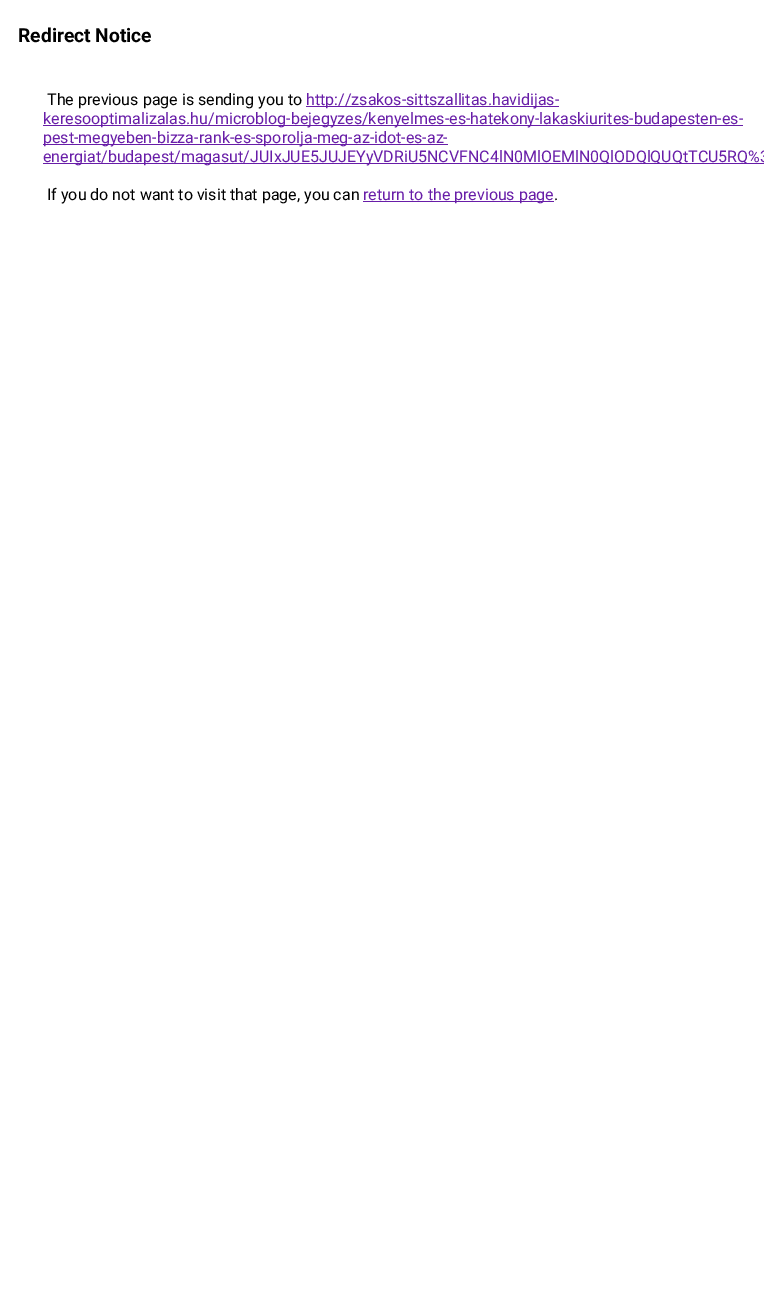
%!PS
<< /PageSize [764 1304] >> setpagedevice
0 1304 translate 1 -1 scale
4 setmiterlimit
1 setgray
0 0 764 1304 rectfill
/Roboto-Bold [19.25 0 0 -19.25 0 0] selectfont
0 setgray
18 42 moveto (Redirect Notice) show
/Roboto-Regular [16 0 0 -16 0 0] selectfont
47 105 moveto (The previous page is sending you to) show
0.408 0.114 0.659 setrgbcolor
306 106 253 1 rectfill
306 105 moveto (http://zsakos-sittszallitas.havidijas-) show
43 125 700 1 rectfill
43 124 moveto (keresooptimalizalas.hu/microblog-bejegyzes/kenyelmes-es-hatekony-lakaskiurites-budapesten-es-) show
43 144 405 1 rectfill
43 143 moveto (pest-megyeben-bizza-rank-es-sporolja-meg-az-idot-es-az-) show
43 163 721 1 rectfill
43 162 moveto (energiat/budapest/magasut/JUIxJUE5JUJEYyVDRiU5NCVFNC4lN0MlOEMlN0QlODQlQUQtTCU5RQ%3) show
0 setgray
47 200 moveto (If you do not want to visit that page, you can) show
0.408 0.114 0.659 setrgbcolor
363 201 191 1 rectfill
363 200 moveto (return to the previous page) show
0 setgray
554 200 moveto (.) show
showpage
